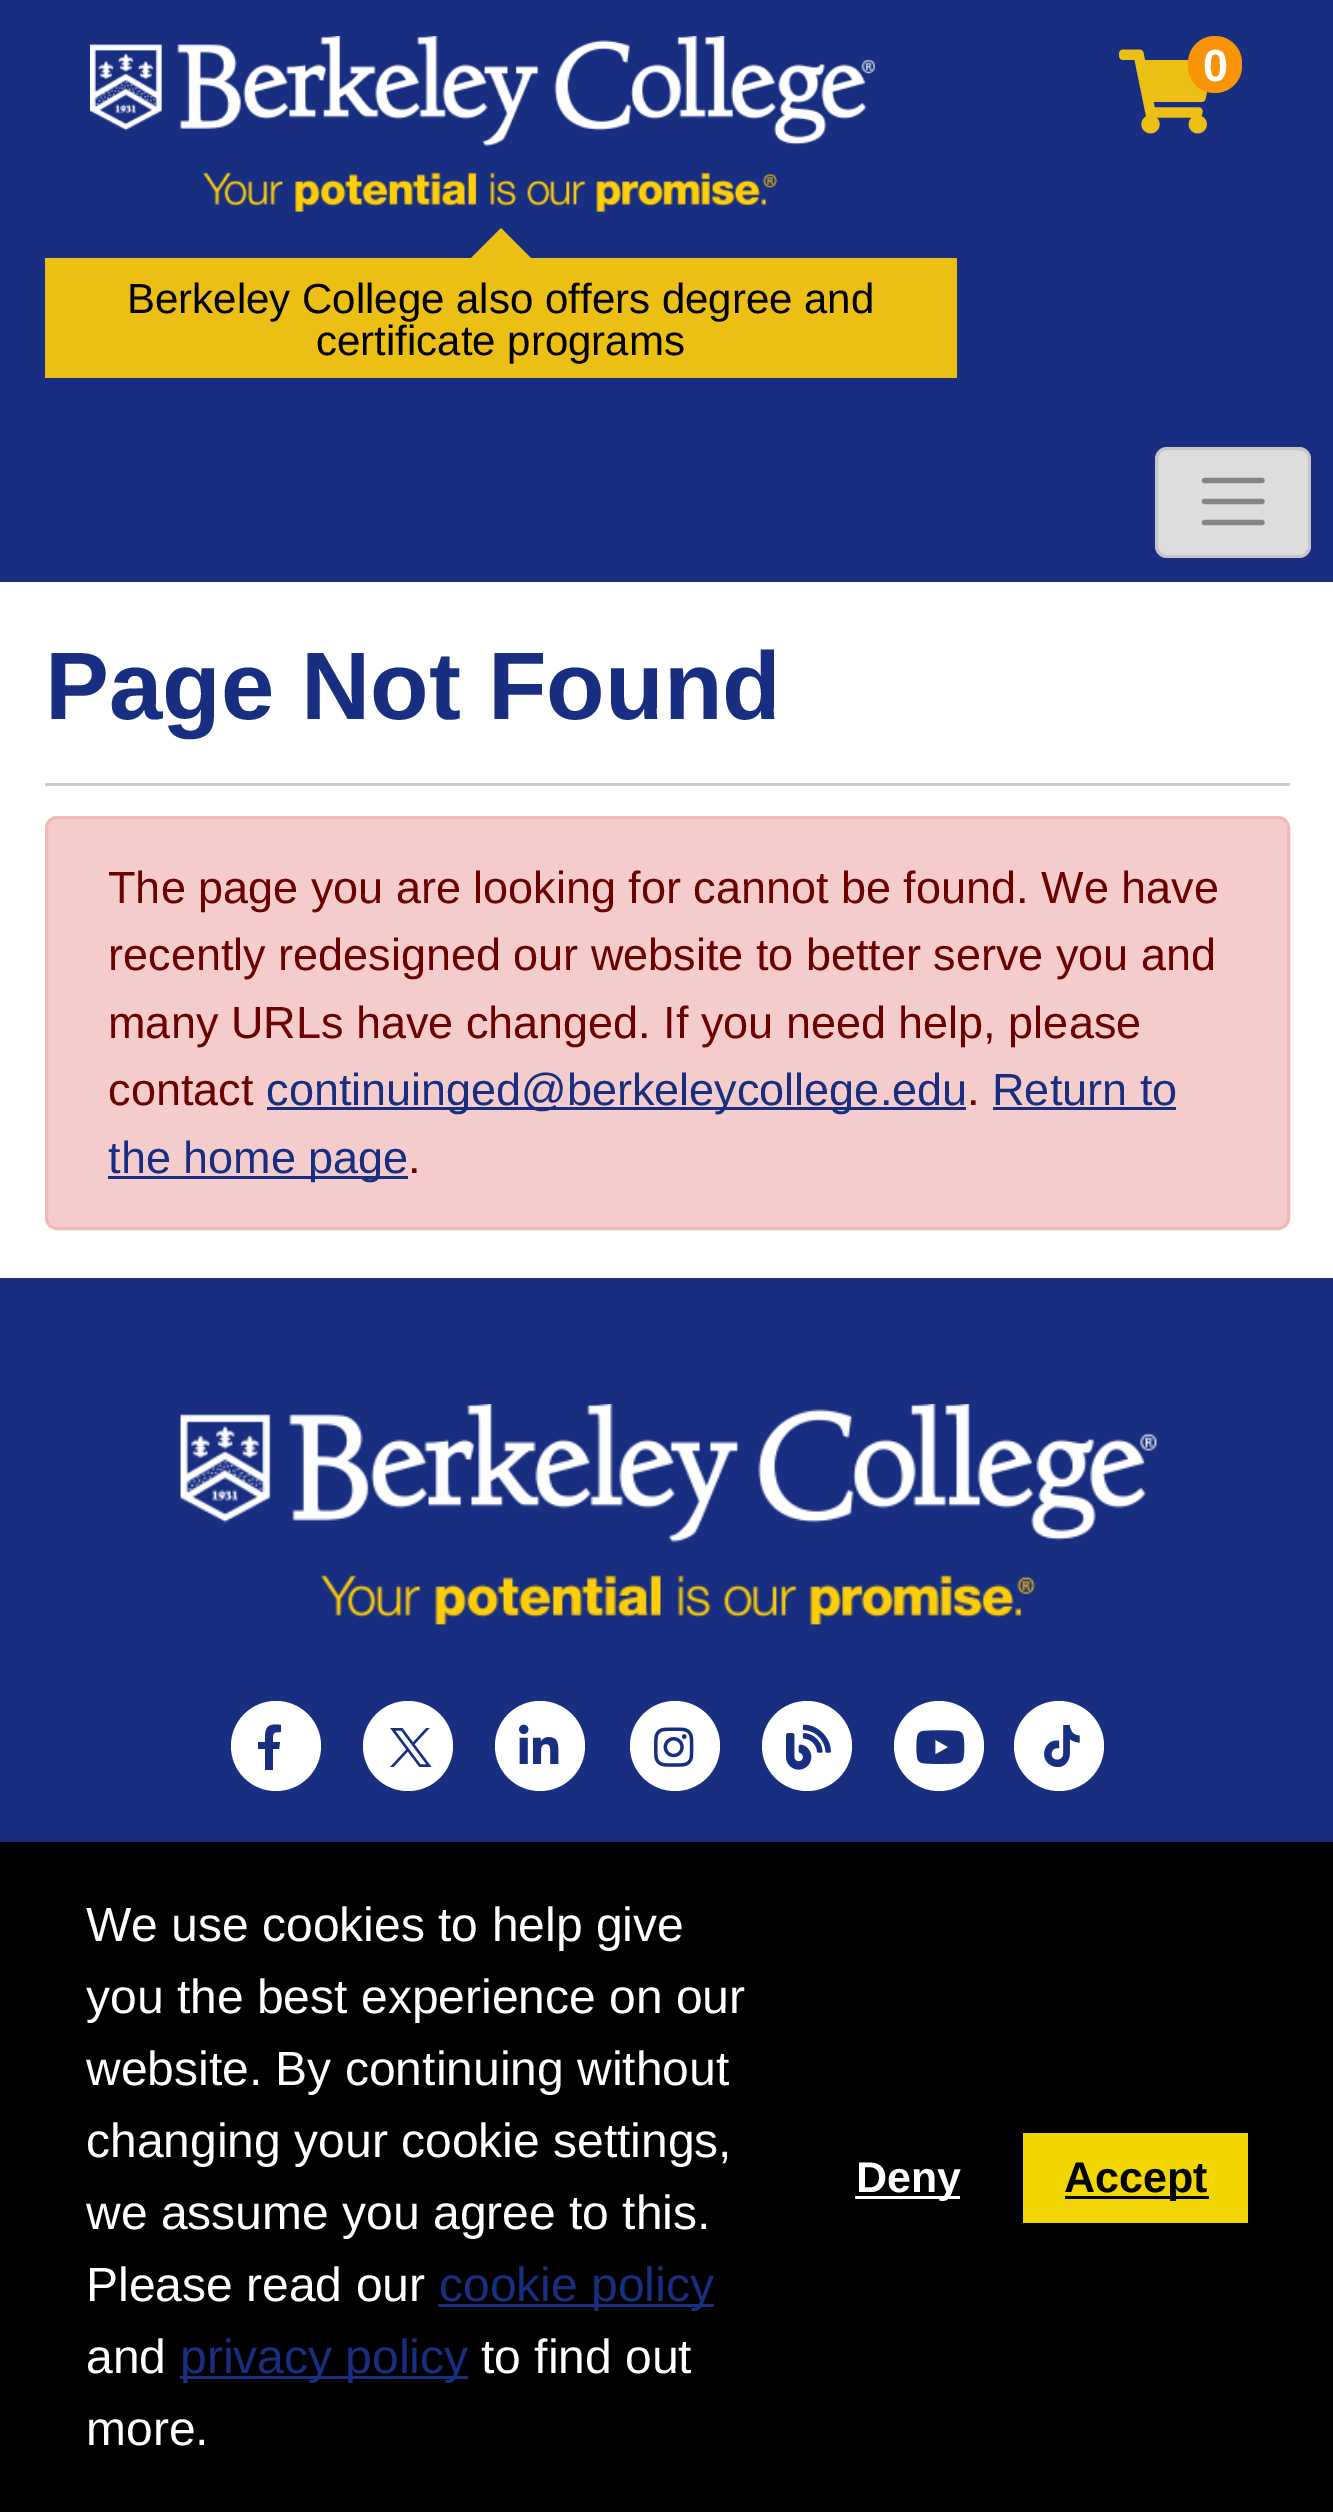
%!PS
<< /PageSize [1333 2512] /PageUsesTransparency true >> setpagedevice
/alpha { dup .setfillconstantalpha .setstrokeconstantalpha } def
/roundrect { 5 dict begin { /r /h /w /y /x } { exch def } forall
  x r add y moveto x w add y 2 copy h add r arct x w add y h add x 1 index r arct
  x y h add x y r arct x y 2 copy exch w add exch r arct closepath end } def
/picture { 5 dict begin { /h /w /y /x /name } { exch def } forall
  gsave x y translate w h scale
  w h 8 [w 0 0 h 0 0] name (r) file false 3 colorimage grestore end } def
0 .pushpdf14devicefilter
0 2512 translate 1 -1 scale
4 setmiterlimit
1 setgray
0 0 1333 2512 rectfill
0.09 0.18 0.506 setrgbcolor
0 0 1333 582 rectfill
(img1.rgb) 1119 49 89 85 picture
0.973 0.58 0.024 setrgbcolor
1188 36 54 57 27 roundrect fill
/LiberationSans-Bold [45 0 0 -45 0 0] selectfont
1 setgray
1203 81 moveto (0) show
(img2.rgb) 90 36 785 176 picture
0.922 0.749 0.078 setrgbcolor
newpath 531 258 moveto 471 258 lineto 501 228 lineto closepath fill
45 258 912 120 rectfill
/LiberationSans-Regular [42 0 0 -42 0 0] selectfont
0 setgray
127 313 moveto (Berkeley College also offers degree and) show
316 355 moveto (certificate programs) show
0.867 setgray
1155 447 156 111 12 roundrect fill
0.1 alpha
0 setgray
3 setlinewidth
1156.5 448.5 153 108 10.5 roundrect stroke
1 alpha
0.522 setgray
5.2 setlinewidth
1 setlinecap
newpath 1204.5 480.5 moveto 1262 480.5 lineto 1204.5 501.5 moveto 1262 501.5 lineto 1204.5 522.5 moveto 1262 522.5 lineto stroke
0.8 setgray
45 783 1245 3 rectfill
/LiberationSans-Bold [96 0 0 -96 0 0] selectfont
0.09 0.18 0.506 setrgbcolor
45 719 moveto (Page Not Found) show
0.961 0.8 0.8 setrgbcolor
46.5 817.5 1242 411 10.5 roundrect gsave fill grestore
0.945 0.722 0.722 setrgbcolor
3 setlinewidth
0 setlinecap
stroke
/LiberationSans-Regular [45 0 0 -45 0 0] selectfont
0.42 0.004 0 setrgbcolor
108 903 moveto (The page you are looking for cannot be found. We have) show
108 970 moveto (recently redesigned our website to better serve you and) show
108 1038 moveto (many URLs have changed. If you need help, please) show
108 1105 moveto (contact) show
0.09 0.18 0.506 setrgbcolor
267 1107 699 3 rectfill
266 1105 moveto (continuinged@berkeleycollege.edu) show
0.42 0.004 0 setrgbcolor
967 1105 moveto (.) show
0.09 0.18 0.506 setrgbcolor
992 1105 moveto (Return to) show
993 1107 183 3 rectfill
108 1176 300 3 rectfill
108 1173 moveto (the home page) show
0.42 0.004 0 setrgbcolor
408 1173 moveto (.) show
0.09 0.18 0.506 setrgbcolor
0 1278 1333 564 rectfill
(img3.rgb) 180 1404 977 221 picture
1 setgray
newpath 276 1746 45 0 360 arc closepath fill
0.09 0.18 0.506 setrgbcolor
newpath 265 1770 moveto 265 1749 lineto 258 1749 lineto 258 1742 lineto 265 1742 lineto 265 1728 266 1723 281 1725 curveto 281 1732 lineto 272 1732 273 1733 273 1742 curveto 280 1742 lineto 279 1749 lineto 273 1749 lineto 273 1770 lineto closepath fill
1 setgray
newpath 408 1746 45 0 360 arc closepath fill
(img4.rgb) 390 1728 42 39 picture
newpath 540 1746 45 0 360 arc closepath fill
(img5.rgb) 519 1724 40 40 picture
newpath 675 1746 45 0 360 arc closepath fill
(img6.rgb) 654 1727 40 40 picture
newpath 807 1746 45 0 360 arc closepath fill
(img7.rgb) 786 1724 45 46 picture
newpath 939 1746 45 0 360 arc closepath fill
(img8.rgb) 916 1730 49 34 picture
newpath 1059 1746 45 0 360 arc closepath fill
(img9.rgb) 1044 1725 36 42 picture
0 setgray
0 1842 1333 670 rectfill
/LiberationSans-Regular [48 0 0 -48 0 0] selectfont
1 setgray
86 1941 moveto (We use cookies to help give) show
86 2013 moveto (you the best experience on our) show
86 2085 moveto (website. By continuing without) show
86 2157 moveto (changing your cookie settings,) show
86 2229 moveto (we assume you agree to this.) show
86 2301 moveto (Please read our) show
0.09 0.18 0.506 setrgbcolor
438 2304 276 3 rectfill
439 2301 moveto (cookie policy) show
1 setgray
86 2373 moveto (and) show
0.09 0.18 0.506 setrgbcolor
180 2376 288 3 rectfill
180 2373 moveto (privacy policy) show
1 setgray
481 2373 moveto (to find out) show
86 2445 moveto (more.) show
855 2196 105 3 rectfill
/LiberationSans-Bold [43 0 0 -43 0 0] selectfont
856 2192 moveto (Deny) show
0.945 0.839 0 setrgbcolor
1023 2133 225 90 rectfill
0 setgray
1065 2196 144 3 rectfill
1064 2192 moveto (Accept) show
.poppdf14devicefilter showpage
